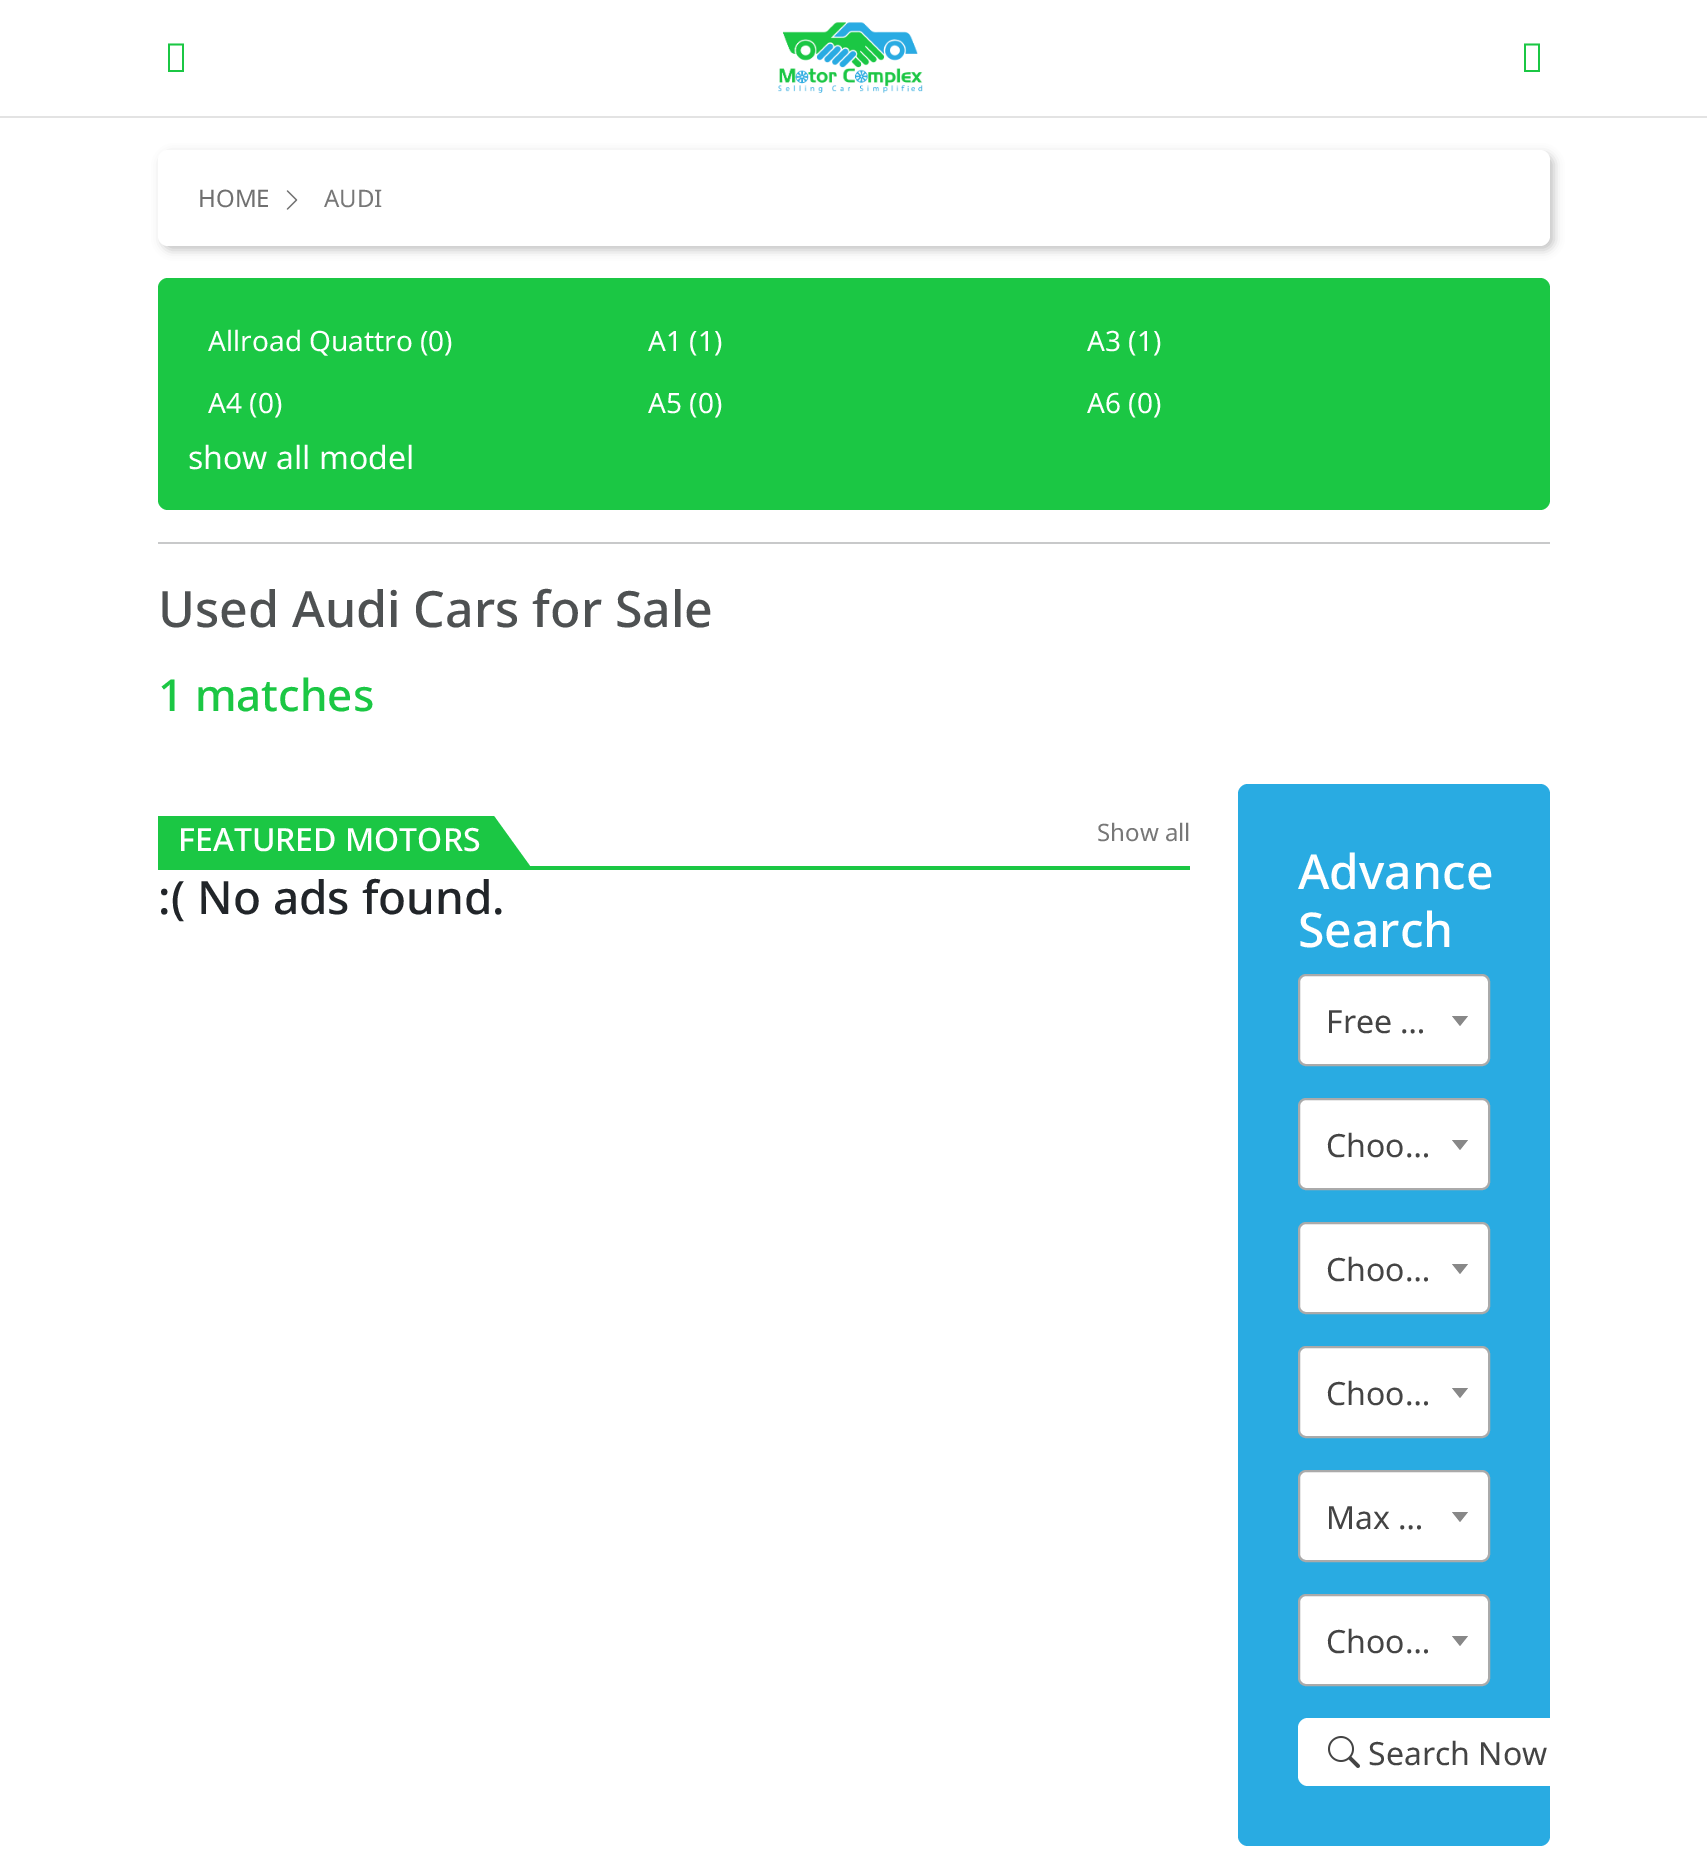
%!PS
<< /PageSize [1707 1860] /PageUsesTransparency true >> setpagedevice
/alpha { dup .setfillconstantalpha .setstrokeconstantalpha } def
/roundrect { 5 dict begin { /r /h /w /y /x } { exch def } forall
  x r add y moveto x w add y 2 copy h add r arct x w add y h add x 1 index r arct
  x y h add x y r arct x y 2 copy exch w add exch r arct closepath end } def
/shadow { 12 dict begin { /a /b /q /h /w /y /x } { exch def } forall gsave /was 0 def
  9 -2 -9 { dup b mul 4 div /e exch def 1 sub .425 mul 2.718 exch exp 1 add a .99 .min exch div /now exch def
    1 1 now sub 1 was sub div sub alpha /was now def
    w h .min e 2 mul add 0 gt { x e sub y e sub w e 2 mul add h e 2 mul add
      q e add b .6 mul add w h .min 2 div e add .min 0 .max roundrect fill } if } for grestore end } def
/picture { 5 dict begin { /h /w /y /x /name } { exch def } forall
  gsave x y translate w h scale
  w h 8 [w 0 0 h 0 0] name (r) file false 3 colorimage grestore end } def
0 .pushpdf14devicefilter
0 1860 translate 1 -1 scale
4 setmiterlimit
1 setgray
0 0 1707 1860 rectfill
0.89 setgray
0 116 1707 2 rectfill
0.106 0.78 0.267 setrgbcolor
newpath 168 72 moveto 168 43.5 lineto 184 43.5 lineto 184 72 lineto closepath 170 70 moveto 182 70 lineto 182 45.5 lineto 170 45.5 lineto closepath fill
(img1.rgb) 778 22 145 71 picture
newpath 1540 72 moveto 1540 43.5 lineto 1524 43.5 lineto 1524 72 lineto closepath 1538 70 moveto 1526 70 lineto 1526 45.5 lineto 1538 45.5 lineto closepath fill
0.502 setgray
162 154 1392 96 10 5 0.49 shadow
1 setgray
158 150 1392 96 10 roundrect fill
/NotoSans-Regular [24 0 0 -24 0 0] selectfont
0.439 setgray
198 207 moveto (HOME) show
(img2.rgb) 286 190 12 20 picture
0.467 setgray
324 207 moveto (AUDI) show
0.106 0.78 0.267 setrgbcolor
158 278 1392 232 10 roundrect fill
/NotoSans-Regular [28 0 0 -28 0 0] selectfont
1 setgray
208 351 moveto (Allroad Quattro \(0\)) show
648 351 moveto (A1 \(1\)) show
1087 351 moveto (A3 \(1\)) show
208 413 moveto (A4 \(0\)) show
648 413 moveto (A5 \(0\)) show
1087 413 moveto (A6 \(0\)) show
/NotoSans-Regular [32 0 0 -32 0 0] selectfont
188 469 moveto (show all model) show
0.784 0.788 0.792 setrgbcolor
158 542 1392 2 rectfill
/NotoSans-Medium [50 0 0 -50 0 0] selectfont
0.306 0.318 0.322 setrgbcolor
158 627 moveto (Used Audi Cars for Sale) show
/NotoSans-Medium [44 0 0 -44 0 0] selectfont
0.106 0.78 0.267 setrgbcolor
158 711 moveto (1 matches) show
158 866 1032 4 rectfill
newpath 158 816 moveto 158 866 lineto 530 866 lineto 494 816 lineto closepath fill
/NotoSans-Medium [32 0 0 -32 0 0] selectfont
1 setgray
178 851 moveto (FEATURED MOTORS) show
/NotoSans-Regular [24 0 0 -24 0 0] selectfont
0.467 setgray
1097 841 moveto (Show all) show
/NotoSans-Medium [46 0 0 -46 0 0] selectfont
0.129 0.145 0.161 setrgbcolor
158 914 moveto (:\( No ads found.) show
0.161 0.671 0.886 setrgbcolor
1238 784 312 1062 10 roundrect fill
/NotoSans-Medium [48 0 0 -48 0 0] selectfont
1 setgray
1298 889 moveto (Advance) show
1298 947 moveto (Search) show
1299 975 190 90 7 roundrect gsave fill grestore
0.667 setgray
2 setlinewidth
stroke
/NotoSans-Regular [32 0 0 -32 0 0] selectfont
0.267 setgray
1326 1033 moveto (Free …) show
0.533 setgray
newpath 1452 1016 moveto 1468 1016 lineto 1460 1026 lineto closepath fill
1 setgray
1299 1099 190 90 7 roundrect gsave fill grestore
0.667 setgray
stroke
0.267 setgray
1326 1157 moveto (Choo…) show
0.533 setgray
newpath 1452 1140 moveto 1468 1140 lineto 1460 1150 lineto closepath fill
1 setgray
1299 1223 190 90 7 roundrect gsave fill grestore
0.667 setgray
stroke
0.267 setgray
1326 1281 moveto (Choo…) show
0.533 setgray
newpath 1452 1264 moveto 1468 1264 lineto 1460 1274 lineto closepath fill
1 setgray
1299 1347 190 90 7 roundrect gsave fill grestore
0.667 setgray
stroke
0.267 setgray
1326 1405 moveto (Choo…) show
0.533 setgray
newpath 1452 1388 moveto 1468 1388 lineto 1460 1398 lineto closepath fill
1 setgray
1299 1471 190 90 7 roundrect gsave fill grestore
0.667 setgray
stroke
0.267 setgray
1326 1529 moveto (Max …) show
0.533 setgray
newpath 1452 1512 moveto 1468 1512 lineto 1460 1522 lineto closepath fill
1 setgray
1299 1595 190 90 7 roundrect gsave fill grestore
0.667 setgray
stroke
0.267 setgray
1326 1653 moveto (Choo…) show
0.533 setgray
newpath 1452 1636 moveto 1468 1636 lineto 1460 1646 lineto closepath fill
1 setgray
1298 1718 280 68 10 roundrect fill
(img3.rgb) 1328 1736 32 32 picture
0.267 setgray
1368 1765 moveto (Search Now) show
.poppdf14devicefilter showpage
